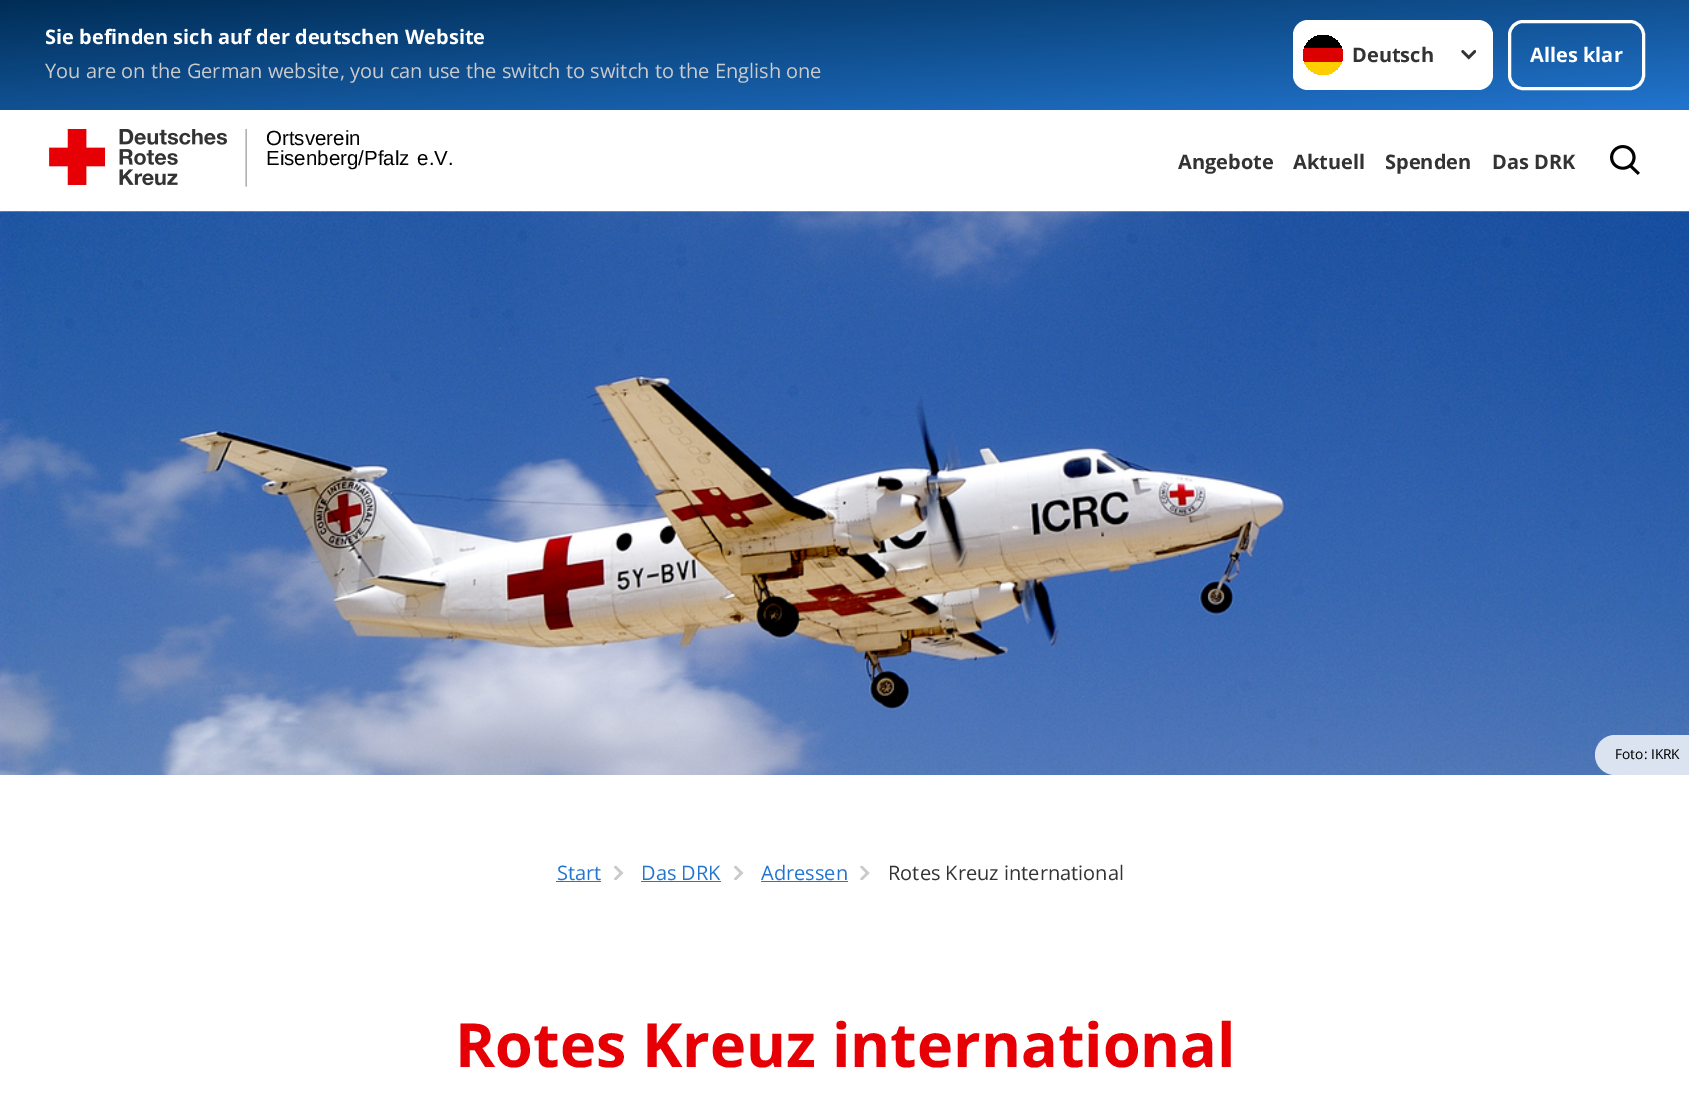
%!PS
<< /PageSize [1689 1119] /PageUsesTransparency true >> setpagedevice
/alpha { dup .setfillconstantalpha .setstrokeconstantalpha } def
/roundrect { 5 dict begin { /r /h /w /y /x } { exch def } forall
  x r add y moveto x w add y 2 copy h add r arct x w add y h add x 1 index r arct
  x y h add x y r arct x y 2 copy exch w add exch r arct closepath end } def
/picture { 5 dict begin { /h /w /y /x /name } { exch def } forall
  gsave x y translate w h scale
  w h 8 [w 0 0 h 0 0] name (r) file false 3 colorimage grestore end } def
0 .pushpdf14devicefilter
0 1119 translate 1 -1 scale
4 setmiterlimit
1 setgray
0 0 1689 1119 rectfill
gsave newpath 0 0 moveto 1689 0 lineto 1689 110 lineto 0 110 lineto closepath clip newpath
<< /ShadingType 2 /ColorSpace /DeviceRGB /Coords [838 -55 852 165] /Extend [true true] /Function << /FunctionType 2 /Domain [0 1] /C0 [0 0.176 0.333] /C1 [0.133 0.463 0.816] /N 1 >> >> shfill grestore
/OpenSans-Bold [20 0 0 -20 0 0] selectfont
45 44 moveto (Sie befinden sich auf der deutschen Website) show
/OpenSans-Regular [20 0 0 -20 0 0] selectfont
0.796 setgray
45 78 moveto (You are on the German website, you can use the switch to switch to the English one) show
1 setgray
1293 20 200 70 15 roundrect fill
gsave
1303 35 40 40 20 roundrect clip newpath
1 0.808 0 setrgbcolor
1304 62 38 13 rectfill
0 setgray
1304 35 38 13 rectfill
0.867 0 0 setrgbcolor
1303 48 40 14 rectfill
grestore
(img1.rgb) 1461 50 15 10 picture
/OpenSans-Bold [20 0 0 -20 0 0] selectfont
0.2 setgray
1352 62 moveto (Deutsch) show
1 setgray
3 setlinewidth
1509.5 21.5 134 67 13.5 roundrect stroke
1530 62 moveto (Alles klar) show
(img2.rgb) 49 129 198 58 picture
/LiberationSans-Regular [20.5 0 0 -20.5 0 0] selectfont
0 setgray
266 145 moveto (Ortsverein) show
266 165 moveto 2 0 32 (Eisenberg/Pfalz e.V.) widthshow
/OpenSans-Bold [20 0 0 -20 0 0] selectfont
0.2 setgray
1178 169 moveto (Angebote) show
1293 169 moveto (Aktuell) show
1385 169 moveto (Spenden) show
1492 169 moveto (Das DRK) show
(img3.rgb) 1610 145 30 30 picture
(img4.rgb) 0 211 1689 564 picture
0.8 alpha
1 setgray
newpath 1615 735 moveto 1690 735 lineto 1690 775 lineto 1615 775 lineto 1604 775 1595 766 1595 755 curveto 1595 744 1604 735 1615 735 curveto closepath fill
/OpenSans-Regular [13.75 0 0 -13.75 0 0] selectfont
1 alpha
0 setgray
1615 759 moveto (Foto: IKRK) show
/OpenSans-Regular [20 0 0 -20 0 0] selectfont
0.133 0.463 0.816 setrgbcolor
557 880 moveto (Start) show
556 881 45 1 rectfill
(img5.rgb) 614 865 10 16 picture
641 880 moveto (Das DRK) show
641 881 80 1 rectfill
(img5.rgb) 734 865 10 16 picture
761 880 moveto (Adressen) show
761 881 87 1 rectfill
(img6.rgb) 860 865 10 16 picture
0.2 setgray
888 880 moveto (Rotes Kreuz international) show
/OpenSans-Bold [61 0 0 -61 0 0] selectfont
0.902 0 0.02 setrgbcolor
455 1067 moveto (Rotes Kreuz international) show
.poppdf14devicefilter showpage
